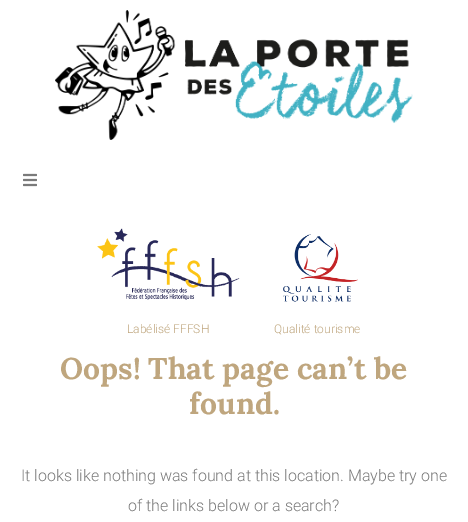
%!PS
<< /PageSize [468 522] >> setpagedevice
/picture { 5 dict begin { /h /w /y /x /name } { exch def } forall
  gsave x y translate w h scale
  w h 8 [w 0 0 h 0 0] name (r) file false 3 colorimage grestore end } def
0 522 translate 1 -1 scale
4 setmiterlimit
1 setgray
0 0 468 522 rectfill
(img1.rgb) 55 10 358 130 picture
(img2.rgb) 23 173 14 14 picture
(img3.rgb) 97 228 143 72 picture
/Roboto-Light [12 0 0 -12 0 0] selectfont
0.749 0.651 0.494 setrgbcolor
127 333 moveto (Labélisé FFFSH) show
(img4.rgb) 283 234 75 68 picture
274 333 moveto (Qualité tourisme) show
/Lora-Bold [30 0 0 -30 0 0] selectfont
60 379 moveto (Oops! That page can’t be) show
189 414 moveto (found.) show
/Roboto-Light [16 0 0 -16 0 0] selectfont
0.478 setgray
21 481 moveto (It looks like nothing was found at this location. Maybe try one) show
128 511 moveto (of the links below or a search?) show
showpage
